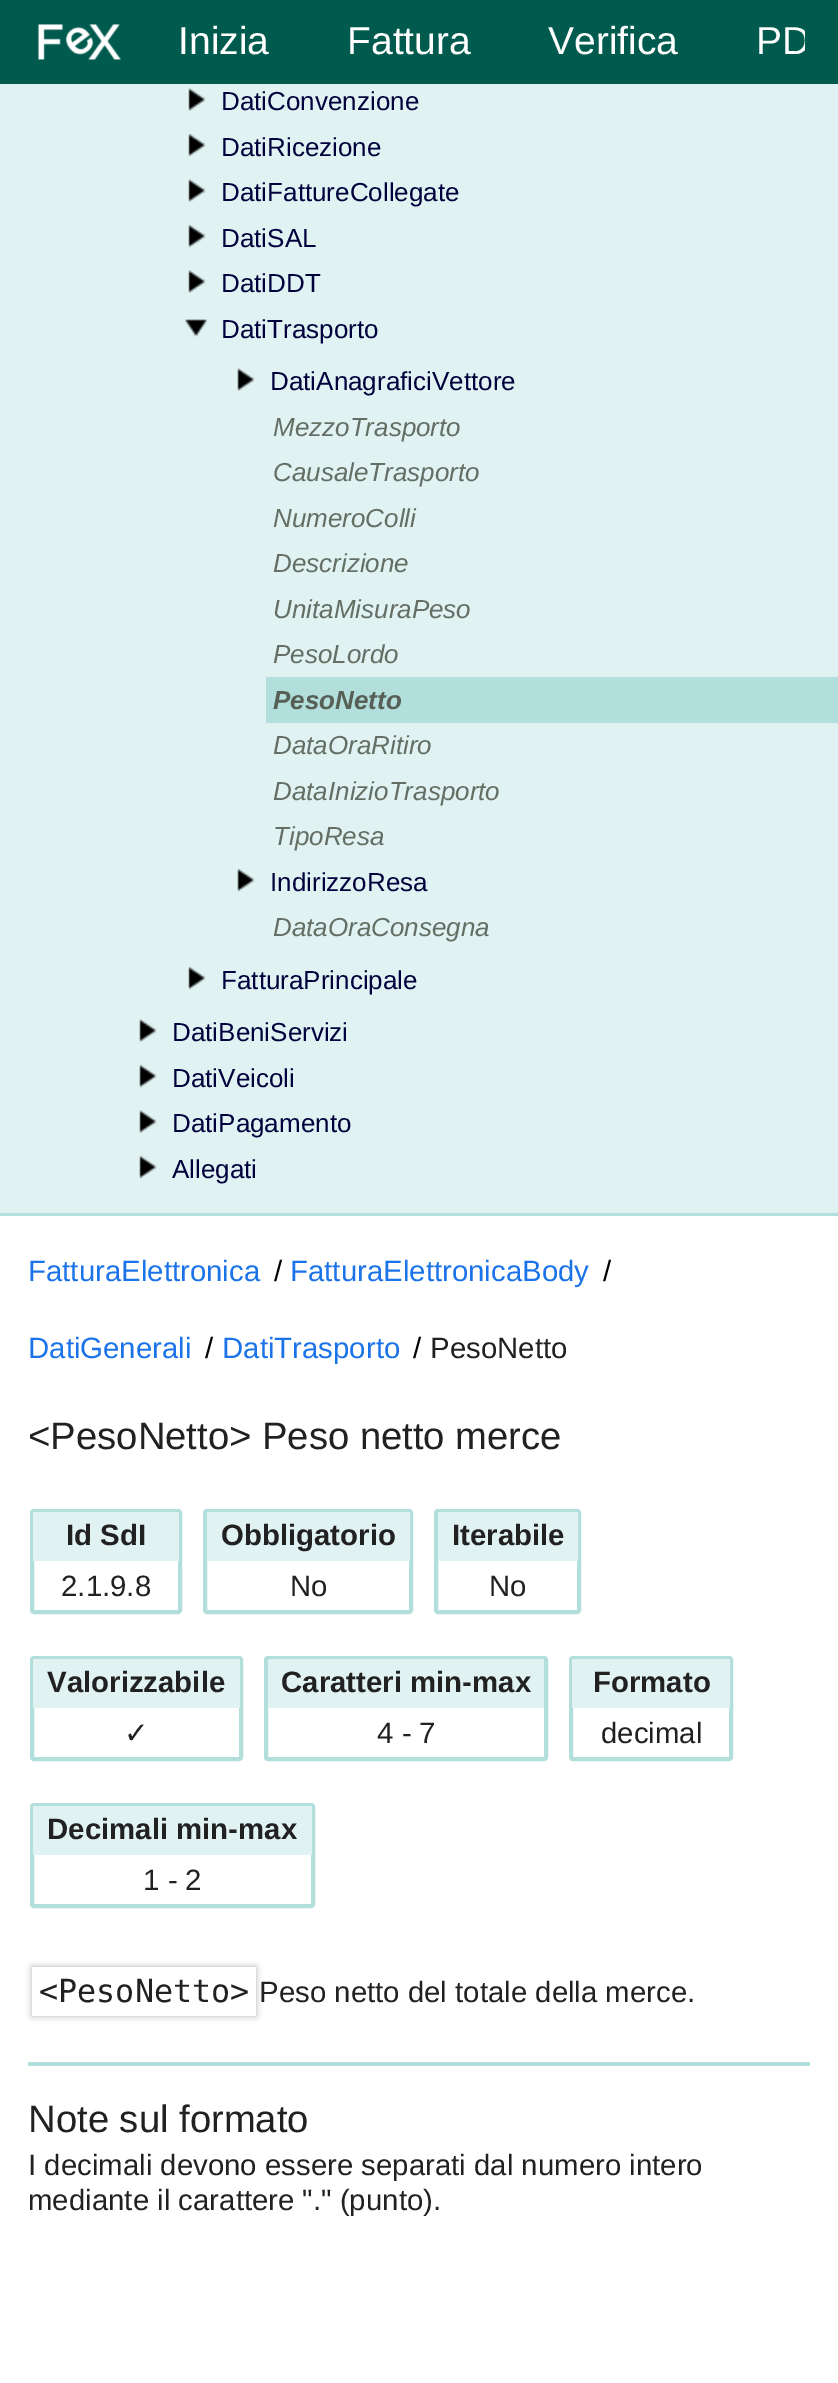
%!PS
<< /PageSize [838 2383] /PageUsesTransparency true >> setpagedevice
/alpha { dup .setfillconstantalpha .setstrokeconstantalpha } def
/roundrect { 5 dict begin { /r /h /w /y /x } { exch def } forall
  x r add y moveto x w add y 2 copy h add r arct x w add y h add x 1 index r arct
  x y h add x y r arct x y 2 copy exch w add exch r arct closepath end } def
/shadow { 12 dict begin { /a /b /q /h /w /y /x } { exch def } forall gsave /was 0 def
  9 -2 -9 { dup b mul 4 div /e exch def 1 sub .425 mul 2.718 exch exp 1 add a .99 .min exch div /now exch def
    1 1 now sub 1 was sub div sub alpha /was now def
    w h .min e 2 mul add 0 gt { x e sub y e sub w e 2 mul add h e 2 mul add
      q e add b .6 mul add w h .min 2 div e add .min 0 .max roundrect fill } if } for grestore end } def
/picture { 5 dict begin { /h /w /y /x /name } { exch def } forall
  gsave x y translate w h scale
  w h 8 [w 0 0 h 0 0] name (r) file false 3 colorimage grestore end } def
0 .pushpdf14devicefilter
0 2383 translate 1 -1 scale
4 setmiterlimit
1 setgray
0 0 838 2383 rectfill
0 0.357 0.306 setrgbcolor
0 0 838 84 rectfill
(img1.rgb) 38 24 83 36 picture
/LiberationSans-Regular [39 0 0 -39 0 0] selectfont
1 setgray
178 54 moveto (Inizia) show
347 54 moveto (Fattura) show
548 54 moveto (Verifica) show
gsave
140 0 665 84 rectclip
756 54 moveto (PD) show
grestore
0.878 0.949 0.945 setrgbcolor
0 84 838 1129 rectfill
0.698 0.875 0.859 setrgbcolor
0 1213 838 3 rectfill
(img2.rgb) 188 88 18 23 picture
/LiberationSans-Regular [26 0 0 -26 0 0] selectfont
0 0 0.235 setrgbcolor
221 110 moveto (DatiConvenzione) show
(img3.rgb) 188 133 18 24 picture
221 156 moveto (DatiRicezione) show
(img2.rgb) 188 179 18 23 picture
221 201 moveto (DatiFattureCollegate) show
(img3.rgb) 188 224 18 24 picture
221 247 moveto (DatiSAL) show
(img2.rgb) 188 270 18 23 picture
221 292 moveto (DatiDDT) show
(img4.rgb) 185 319 22 18 picture
221 338 moveto (DatiTrasporto) show
(img2.rgb) 237 368 18 23 picture
270 390 moveto (DatiAnagraficiVettore) show
/LiberationSans-Italic [26 0 0 -26 0 0] selectfont
0.392 0.431 0.392 setrgbcolor
273 436 moveto (MezzoTrasporto) show
273 481 moveto (CausaleTrasporto) show
273 527 moveto (NumeroColli) show
273 572 moveto (Descrizione) show
273 618 moveto (UnitaMisuraPeso) show
273 663 moveto (PesoLordo) show
0.698 0.875 0.859 setrgbcolor
266 677 572 46 rectfill
/LiberationSans-BoldItalic [26 0 0 -26 0 0] selectfont
0.337 0.376 0.337 setrgbcolor
273 709 moveto (PesoNetto) show
/LiberationSans-Italic [26 0 0 -26 0 0] selectfont
0.392 0.431 0.392 setrgbcolor
273 754 moveto (DataOraRitiro) show
273 800 moveto (DataInizioTrasporto) show
273 845 moveto (TipoResa) show
(img3.rgb) 237 868 18 24 picture
/LiberationSans-Regular [26 0 0 -26 0 0] selectfont
0 0 0.235 setrgbcolor
270 891 moveto (IndirizzoResa) show
/LiberationSans-Italic [26 0 0 -26 0 0] selectfont
0.392 0.431 0.392 setrgbcolor
273 936 moveto (DataOraConsegna) show
(img3.rgb) 188 966 18 24 picture
/LiberationSans-Regular [26 0 0 -26 0 0] selectfont
0 0 0.235 setrgbcolor
221 989 moveto (FatturaPrincipale) show
(img5.rgb) 139 1019 18 23 picture
172 1041 moveto (DatiBeniServizi) show
(img6.rgb) 139 1064 18 24 picture
172 1087 moveto (DatiVeicoli) show
(img5.rgb) 139 1110 18 23 picture
172 1132 moveto (DatiPagamento) show
(img6.rgb) 139 1155 18 24 picture
172 1178 moveto (Allegati) show
/LiberationSans-Regular [29.4 0 0 -29.4 0 0] selectfont
0.102 0.451 0.91 setrgbcolor
28 1281 moveto (FatturaElettronica) show
0 setgray
274 1281 moveto (/) show
0.102 0.451 0.91 setrgbcolor
290 1281 moveto (FatturaElettronicaBody) show
0 setgray
603 1281 moveto (/) show
0.102 0.451 0.91 setrgbcolor
28 1358 moveto (DatiGenerali) show
0 setgray
205 1358 moveto (/) show
0.102 0.451 0.91 setrgbcolor
222 1358 moveto (DatiTrasporto) show
0 setgray
413 1358 moveto (/) show
0.129 setgray
430 1358 moveto (PesoNetto) show
/LiberationSans-Regular [38.25 0 0 -38.25 0 0] selectfont
28 1449 moveto (<PesoNetto> Peso netto merce) show
0.698 0.875 0.859 setrgbcolor
4 setlinewidth
32 1511 148 101 2 roundrect stroke
0.878 0.949 0.945 setrgbcolor
33 1512 146 49 rectfill
/LiberationSans-Bold [29.4 0 0 -29.4 0 0] selectfont
0.129 setgray
66 1545 moveto (Id SdI) show
/LiberationSans-Regular [29.4 0 0 -29.4 0 0] selectfont
61 1596 moveto (2.1.9.8) show
0.698 0.875 0.859 setrgbcolor
205 1511 206 101 2 roundrect stroke
0.878 0.949 0.945 setrgbcolor
207 1512 203 49 rectfill
/LiberationSans-Bold [29.4 0 0 -29.4 0 0] selectfont
0.129 setgray
221 1545 moveto (Obbligatorio) show
/LiberationSans-Regular [29.4 0 0 -29.4 0 0] selectfont
290 1596 moveto (No) show
0.698 0.875 0.859 setrgbcolor
436 1511 143 101 2 roundrect stroke
0.878 0.949 0.945 setrgbcolor
438 1512 140 49 rectfill
/LiberationSans-Bold [29.4 0 0 -29.4 0 0] selectfont
0.129 setgray
452 1545 moveto (Iterabile) show
/LiberationSans-Regular [29.4 0 0 -29.4 0 0] selectfont
489 1596 moveto (No) show
0.698 0.875 0.859 setrgbcolor
32 1658 209 101 2 roundrect stroke
0.878 0.949 0.945 setrgbcolor
33 1659 207 49 rectfill
/LiberationSans-Bold [29.4 0 0 -29.4 0 0] selectfont
0.129 setgray
47 1692 moveto (Valorizzabile) show
/DejaVuSans-Regular [29.4 0 0 -29.4 0 0] selectfont
124 1743 moveto (✓) show
0.698 0.875 0.859 setrgbcolor
266 1658 280 101 2 roundrect stroke
0.878 0.949 0.945 setrgbcolor
268 1659 276 49 rectfill
/LiberationSans-Bold [29.4 0 0 -29.4 0 0] selectfont
0.129 setgray
281 1692 moveto (Caratteri min-max) show
/LiberationSans-Regular [29.4 0 0 -29.4 0 0] selectfont
377 1743 moveto (4 - 7) show
0.698 0.875 0.859 setrgbcolor
571 1658 160 101 2 roundrect stroke
0.878 0.949 0.945 setrgbcolor
572 1659 158 49 rectfill
/LiberationSans-Bold [29.4 0 0 -29.4 0 0] selectfont
0.129 setgray
593 1692 moveto (Formato) show
/LiberationSans-Regular [29.4 0 0 -29.4 0 0] selectfont
601 1743 moveto (decimal) show
0.698 0.875 0.859 setrgbcolor
32 1805 281 101 2 roundrect stroke
0.878 0.949 0.945 setrgbcolor
33 1806 279 49 rectfill
/LiberationSans-Bold [29.4 0 0 -29.4 0 0] selectfont
0.129 setgray
47 1839 moveto (Decimali min-max) show
/LiberationSans-Regular [29.4 0 0 -29.4 0 0] selectfont
143 1890 moveto (1 - 2) show
gsave
newpath 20 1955 moveto 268 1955 lineto 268 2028 lineto 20 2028 lineto closepath 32 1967 moveto 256 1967 lineto 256 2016 lineto 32 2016 lineto closepath eoclip newpath
0 setgray
32 1967 224 49 0 3.5 0.3 shadow
grestore
/DejaVuSansMono-Regular [31.75 0 0 -31.75 0 0] selectfont
39 2002 moveto (<PesoNetto>) show
/LiberationSans-Regular [29.4 0 0 -29.4 0 0] selectfont
259 2002 moveto (Peso netto del totale della merce.) show
0.698 0.875 0.859 setrgbcolor
28 2062 782 4 rectfill
/LiberationSans-Regular [38.25 0 0 -38.25 0 0] selectfont
0.129 setgray
28 2132 moveto (Note sul formato) show
/LiberationSans-Regular [29.4 0 0 -29.4 0 0] selectfont
28 2175 moveto (I decimali devono essere separati dal numero intero) show
28 2210 moveto (mediante il carattere "." \(punto\).) show
.poppdf14devicefilter showpage
